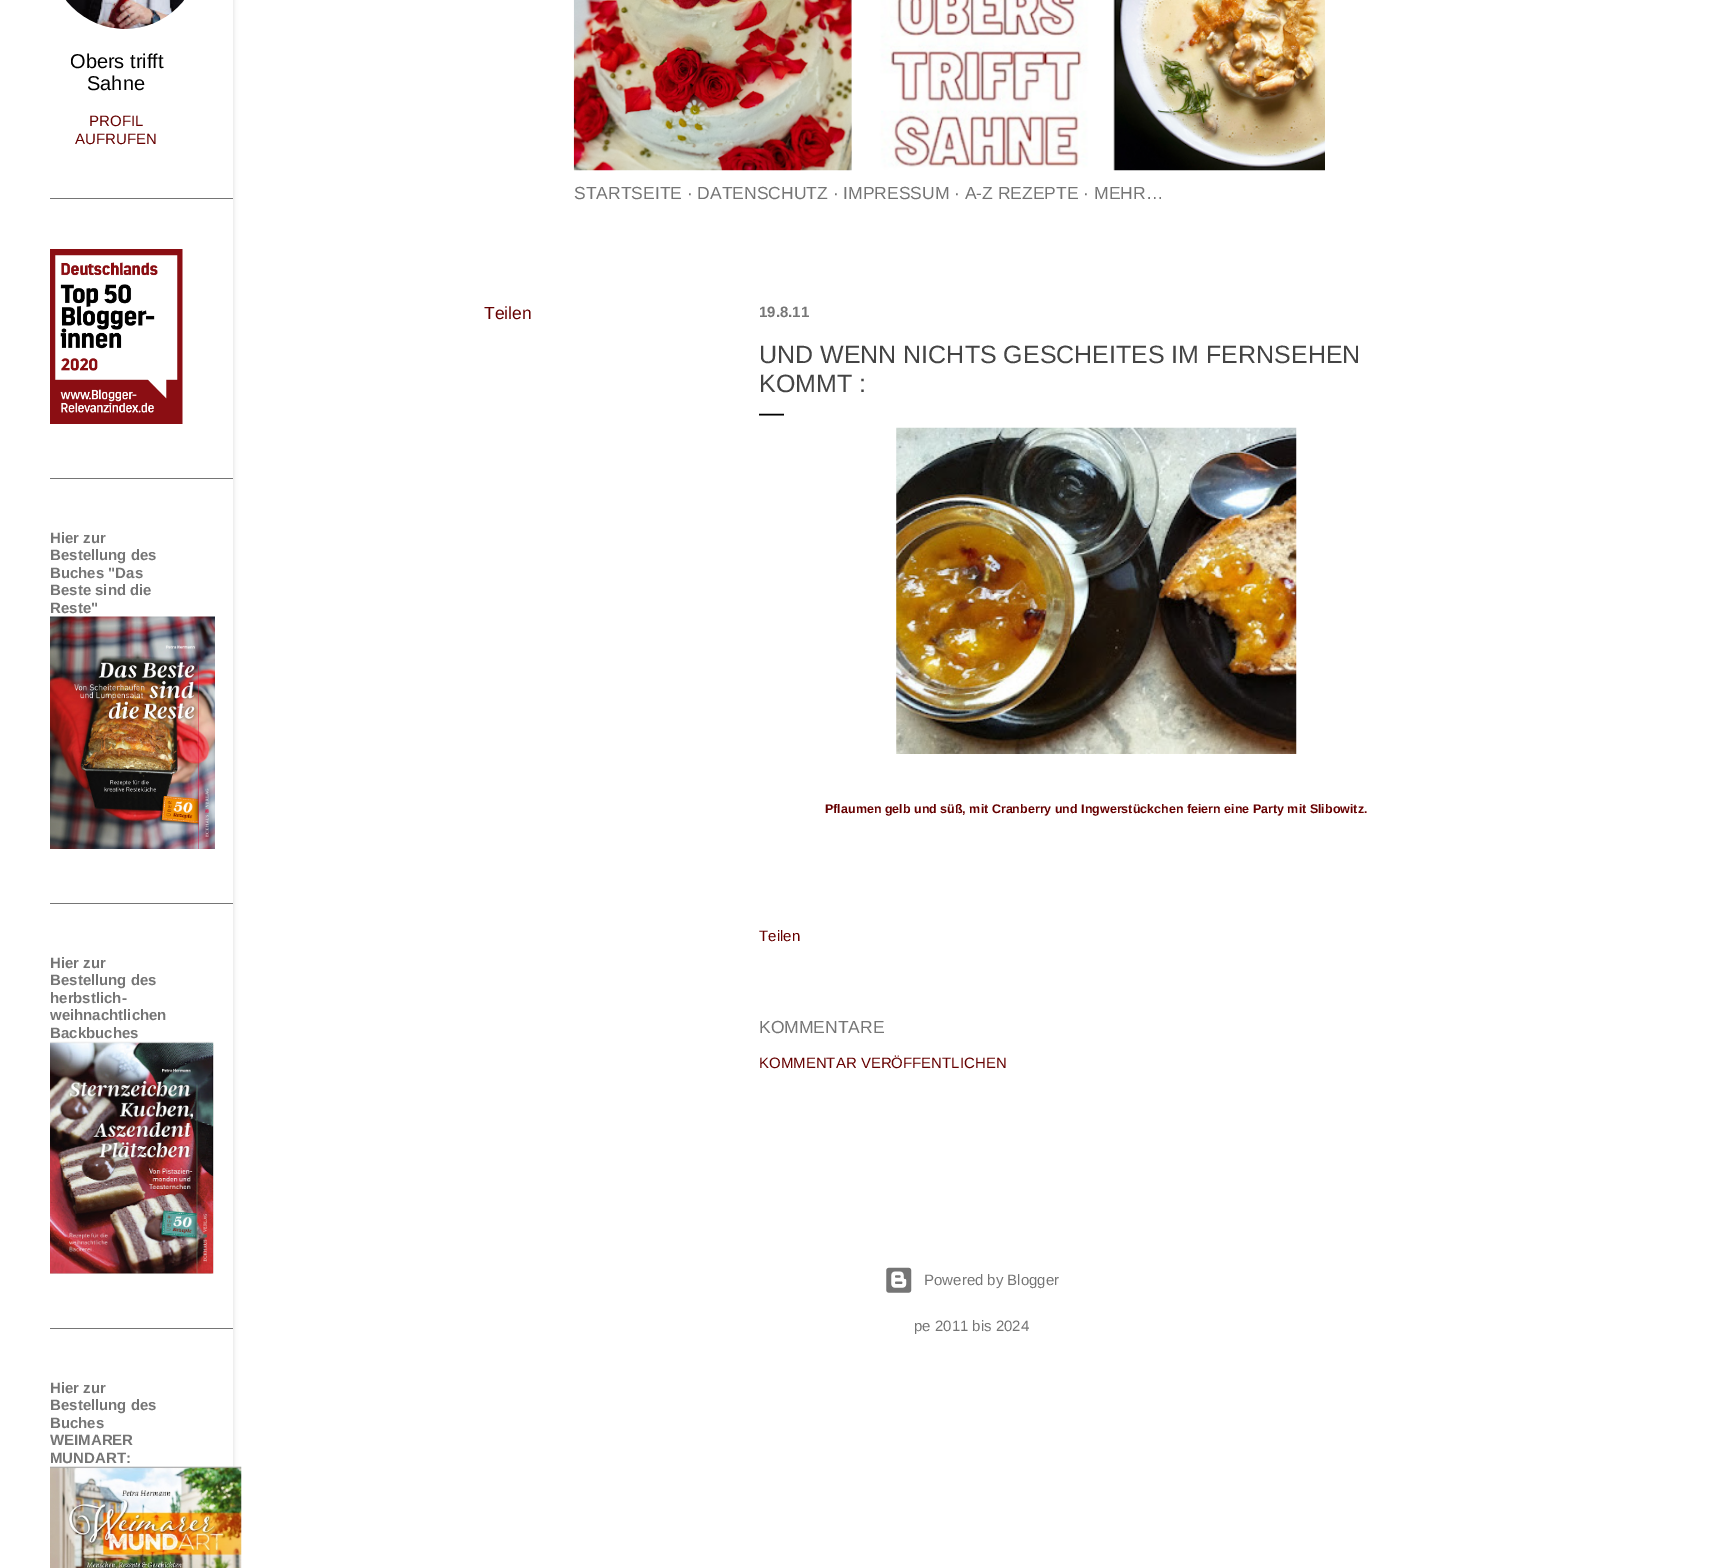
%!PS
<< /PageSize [1709 1568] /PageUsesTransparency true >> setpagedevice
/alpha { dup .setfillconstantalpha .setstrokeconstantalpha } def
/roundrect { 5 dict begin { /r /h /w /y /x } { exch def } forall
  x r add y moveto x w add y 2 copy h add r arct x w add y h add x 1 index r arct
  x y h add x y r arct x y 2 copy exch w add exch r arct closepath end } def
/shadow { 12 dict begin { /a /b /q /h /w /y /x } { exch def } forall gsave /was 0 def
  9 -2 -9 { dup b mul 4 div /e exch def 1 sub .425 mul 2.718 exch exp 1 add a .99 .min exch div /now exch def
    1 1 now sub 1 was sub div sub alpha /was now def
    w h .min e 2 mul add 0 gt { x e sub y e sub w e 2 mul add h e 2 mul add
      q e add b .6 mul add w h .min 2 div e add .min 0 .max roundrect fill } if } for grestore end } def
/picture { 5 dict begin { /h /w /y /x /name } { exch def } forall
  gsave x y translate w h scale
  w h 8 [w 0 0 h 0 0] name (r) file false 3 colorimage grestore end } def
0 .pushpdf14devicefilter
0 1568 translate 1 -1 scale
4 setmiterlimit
1 setgray
0 0 1709 1568 rectfill
0 setgray
1 -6 233 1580 0 2 0.1 shadow
1 setgray
0 0 233 1568 rectfill
(img1.rgb) 65 0 119 29 picture
/LiberationSans-Regular [20 0 0 -20 0 0] selectfont
0 setgray
70 68 moveto (Obers trifft) show
87 90 moveto (Sahne) show
/LiberationSans-Regular [15 0 0 -15 0 0] selectfont
0.4 0 0 setrgbcolor
89 126 moveto (PROFIL) show
75 144 moveto (AUFRUFEN) show
0.459 setgray
50 198 183 1 rectfill
(img2.rgb) 50 249 133 175 picture
50 478 183 1 rectfill
/LiberationSans-Bold [15 0 0 -15 0 0] selectfont
50 543 moveto (Hier zur) show
50 560 moveto (Bestellung des) show
50 578 moveto (Buches "Das) show
50 595 moveto (Beste sind die) show
50 613 moveto (Reste") show
(img3.rgb) 50 616 165 233 picture
50 903 183 1 rectfill
50 968 moveto (Hier zur) show
50 985 moveto (Bestellung des) show
50 1003 moveto (herbstlich-) show
50 1020 moveto (weihnachtlichen) show
50 1038 moveto (Backbuches) show
(img4.rgb) 50 1041 164 233 picture
50 1328 183 1 rectfill
50 1393 moveto (Hier zur) show
50 1410 moveto (Bestellung des) show
50 1428 moveto (Buches) show
50 1445 moveto (WEIMARER) show
50 1463 moveto (MUNDART:) show
(img5.rgb) 50 1466 192 102 picture
(img6.rgb) 573 0 752 171 picture
/LiberationSans-Regular [17.5 0 0 -17.5 0 0] selectfont
574 199 moveto (STARTSEITE · DATENSCHUTZ · IMPRESSUM · A-Z REZEPTE · MEHR…) show
0.4 0 0 setrgbcolor
484 319 moveto (Teilen) show
/LiberationSans-Bold [15 0 0 -15 0 0] selectfont
0.459 setgray
759 317 moveto (19.8.11) show
/LiberationSans-Regular [25 0 0 -25 0 0] selectfont
0.267 setgray
759 363 moveto (UND WENN NICHTS GESCHEITES IM FERNSEHEN) show
759 392 moveto (KOMMT :) show
0 setgray
759 421 moveto (—) show
(img7.rgb) 896 427 401 327 picture
/LiberationSans-Bold [12.5 0 0 -12.5 0 0] selectfont
0.4 0 0 setrgbcolor
825 813 moveto (Pflaumen gelb und süß, mit Cranberry und Ingwerstückchen feiern eine Party mit Slibowitz.) show
/LiberationSans-Regular [15 0 0 -15 0 0] selectfont
759 941 moveto (Teilen) show
/LiberationSans-Regular [17.5 0 0 -17.5 0 0] selectfont
0.459 setgray
759 1033 moveto (KOMMENTARE) show
/LiberationSans-Regular [15 0 0 -15 0 0] selectfont
0.4 0 0 setrgbcolor
759 1068 moveto (KOMMENTAR VERÖFFENTLICHEN) show
(img8.rgb) 886 1267 26 26 picture
0.459 setgray
924 1285 moveto (Powered by Blogger) show
914 1331 moveto (pe 2011 bis 2024) show
.poppdf14devicefilter showpage
